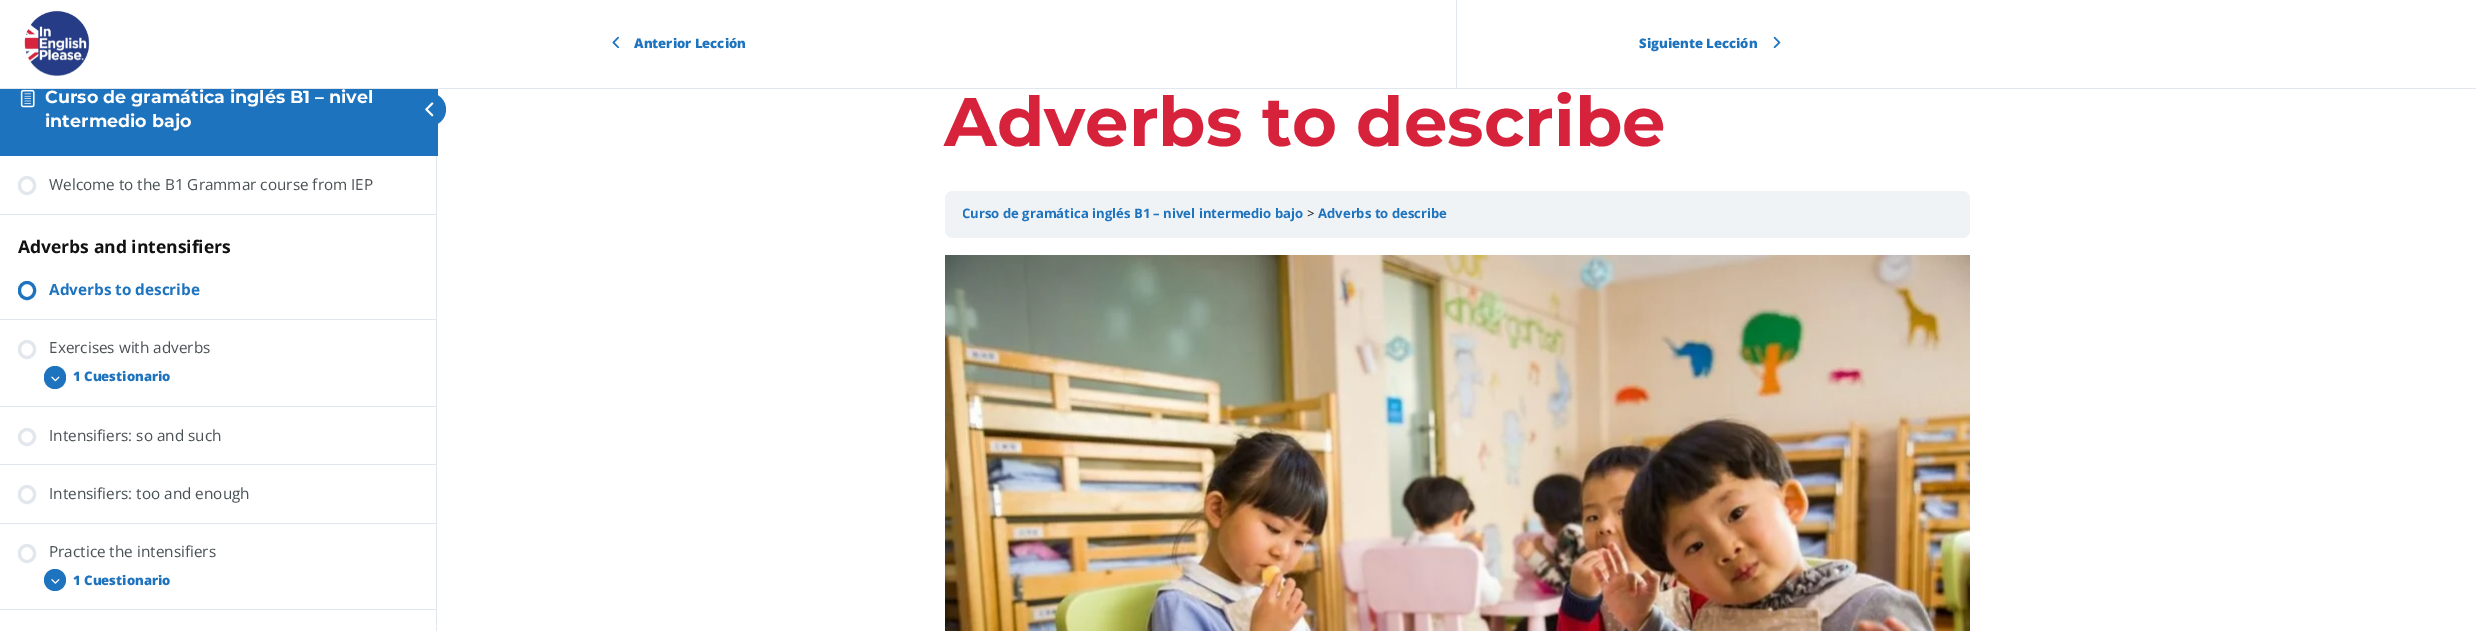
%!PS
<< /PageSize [2476 631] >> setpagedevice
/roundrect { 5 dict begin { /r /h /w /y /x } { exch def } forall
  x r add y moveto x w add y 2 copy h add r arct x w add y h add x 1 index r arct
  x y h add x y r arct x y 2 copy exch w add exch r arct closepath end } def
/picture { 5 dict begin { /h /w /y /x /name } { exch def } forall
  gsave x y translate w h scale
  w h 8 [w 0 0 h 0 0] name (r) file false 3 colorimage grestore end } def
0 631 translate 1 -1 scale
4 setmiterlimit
1 setgray
0 0 2476 631 rectfill
0.886 0.906 0.929 setrgbcolor
436 156 1 475 rectfill
0.118 0.451 0.745 setrgbcolor
0 89 438 67 rectfill
(img1.rgb) 20 89 15 19 picture
/Montserrat-Bold [17.5 0 0 -17.5 0 0] selectfont
1 setgray
45 103 moveto (Curso de gramática inglés B1 – nivel) show
45 127 moveto (intermedio bajo) show
0.118 0.451 0.745 setrgbcolor
newpath 429.5 109.5 16.5 0 360 arc closepath fill
(img2.rgb) 425 102 9 15 picture
0.886 0.906 0.929 setrgbcolor
0 214 436 1 rectfill
3 setlinewidth
19.5 177.5 15 16 7.5 roundrect stroke
/OpenSans-Regular [15.3 0 0 -15.3 0 0] selectfont
0.286 0.322 0.333 setrgbcolor
49 190 moveto (Welcome to the B1 Grammar course from IEP) show
/OpenSans-Bold [17.5 0 0 -17.5 0 0] selectfont
0.067 setgray
18 253 moveto (Adverbs and intensifiers) show
0.886 0.906 0.929 setrgbcolor
0 319 436 1 rectfill
0.118 0.451 0.745 setrgbcolor
19.5 282.5 15 16 7.5 roundrect stroke
/OpenSans-Bold [15.3 0 0 -15.3 0 0] selectfont
49 295 moveto (Adverbs to describe) show
0.886 0.906 0.929 setrgbcolor
0 406 436 1 rectfill
19.5 341.5 15 16 7.5 roundrect stroke
/OpenSans-Regular [15.3 0 0 -15.3 0 0] selectfont
0.286 0.322 0.333 setrgbcolor
49 353 moveto (Exercises with adverbs) show
0.118 0.451 0.745 setrgbcolor
44 366 22 23 11 roundrect fill
(img3.rgb) 51 376 9 6 picture
/OpenSans-ExtraBold [13.1 0 0 -13.1 0 0] selectfont
73 381 moveto (1 Cuestionario) show
0.886 0.906 0.929 setrgbcolor
0 464 436 1 rectfill
newpath 27 437 7.5 0 360 arc closepath stroke
/OpenSans-Regular [15.3 0 0 -15.3 0 0] selectfont
0.286 0.322 0.333 setrgbcolor
49 441 moveto (Intensifiers: so and such) show
0.886 0.906 0.929 setrgbcolor
0 523 436 1 rectfill
19.5 486.5 15 16 7.5 roundrect stroke
0.286 0.322 0.333 setrgbcolor
49 499 moveto (Intensifiers: too and enough) show
0.886 0.906 0.929 setrgbcolor
0 609 436 1 rectfill
19.5 545.5 15 16 7.5 roundrect stroke
0.286 0.322 0.333 setrgbcolor
49 557 moveto (Practice the intensifiers) show
0.118 0.451 0.745 setrgbcolor
newpath 55 580 11 0 360 arc closepath fill
(img4.rgb) 51 579 9 5 picture
/OpenSans-ExtraBold [13.1 0 0 -13.1 0 0] selectfont
73 585 moveto (1 Cuestionario) show
0.886 0.906 0.929 setrgbcolor
0 88 2476 1 rectfill
(img5.rgb) 24 10 66 67 picture
1456 0 1 88 rectfill
(img6.rgb) 612 36 7 13 picture
0.118 0.451 0.745 setrgbcolor
634 48 moveto (Anterior Lección) show
1639 48 moveto (Siguiente Lección) show
(img7.rgb) 1773 36 8 13 picture
/Montserrat-Bold [68.75 0 0 -68.75 0 0] selectfont
0.843 0.133 0.231 setrgbcolor
944 146 moveto (Adverbs to describe) show
0.941 0.953 0.965 setrgbcolor
945 191 1025 47 8 roundrect fill
gsave
963 200 498 29 rectclip
/OpenSans-Bold [13.1 0 0 -13.1 0 0] selectfont
0.118 0.451 0.745 setrgbcolor
962 218 moveto (Curso de gramática inglés B1 – nivel intermedio bajo) show
grestore
/OpenSans-Regular [13.1 0 0 -13.1 0 0] selectfont
0.067 setgray
1307 218 moveto (>) show
/OpenSans-Bold [13.1 0 0 -13.1 0 0] selectfont
0.118 0.451 0.745 setrgbcolor
1318 218 moveto (Adverbs to describe) show
(img8.rgb) 945 255 1025 376 picture
showpage
